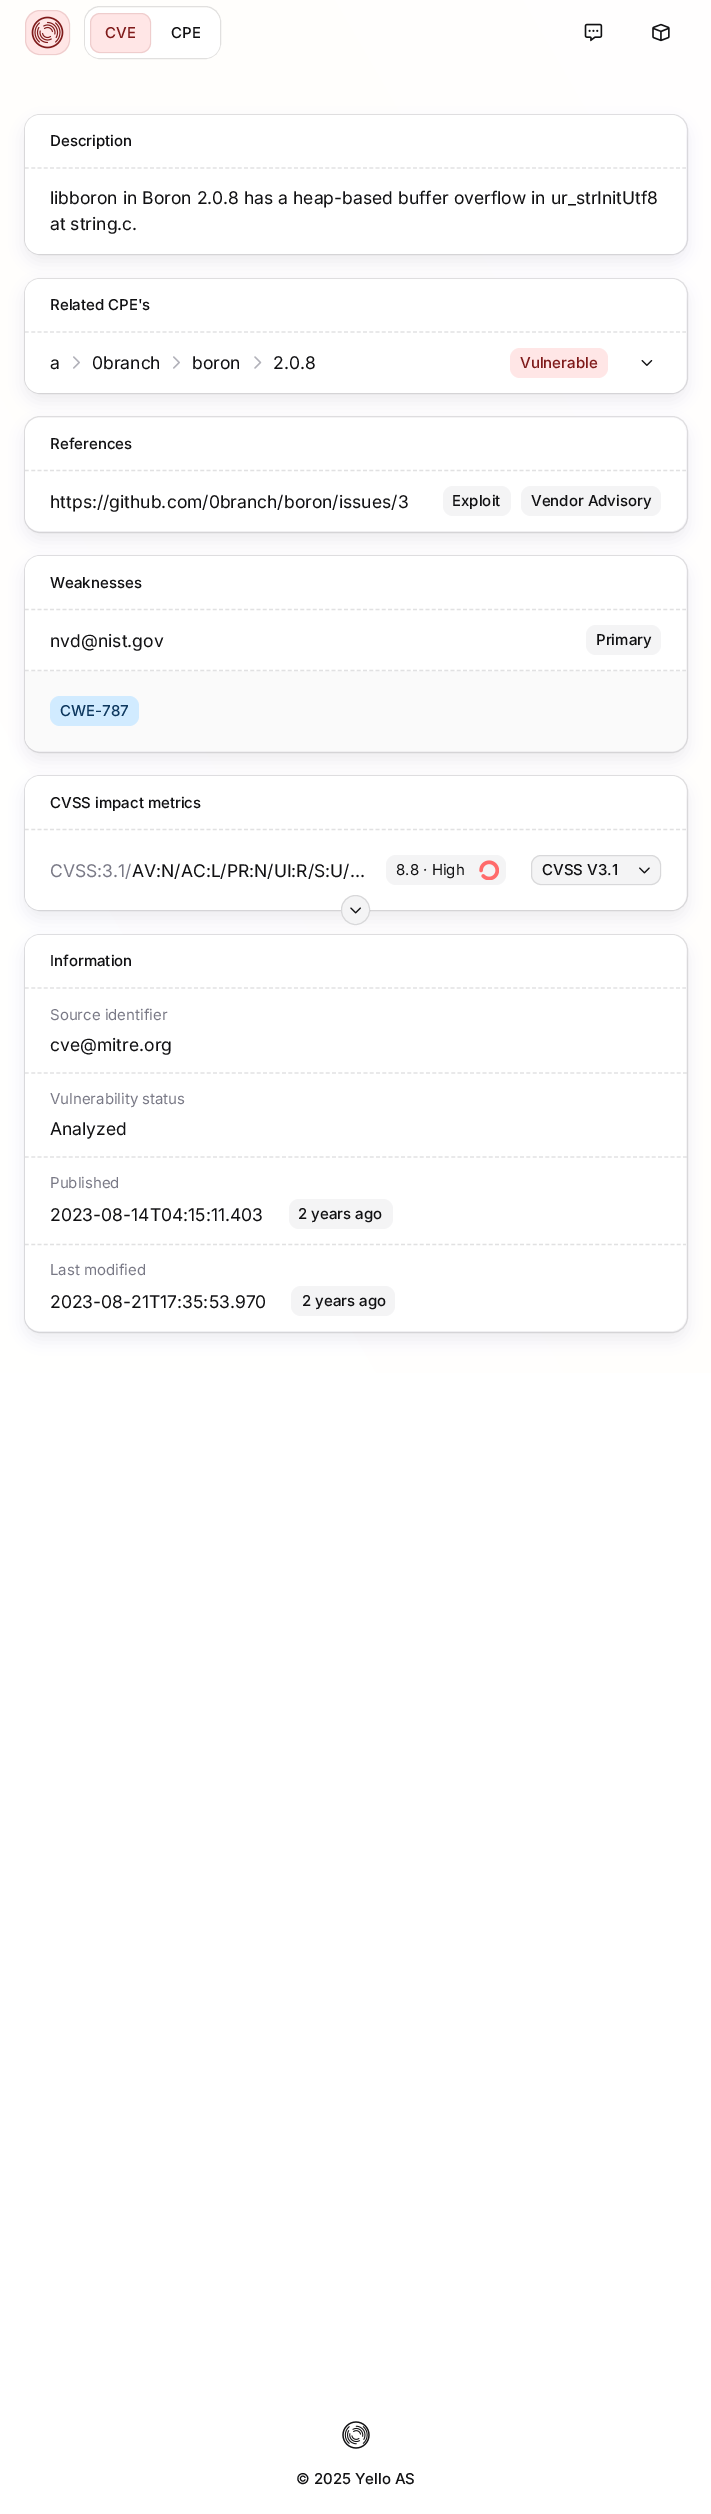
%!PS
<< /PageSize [711 2514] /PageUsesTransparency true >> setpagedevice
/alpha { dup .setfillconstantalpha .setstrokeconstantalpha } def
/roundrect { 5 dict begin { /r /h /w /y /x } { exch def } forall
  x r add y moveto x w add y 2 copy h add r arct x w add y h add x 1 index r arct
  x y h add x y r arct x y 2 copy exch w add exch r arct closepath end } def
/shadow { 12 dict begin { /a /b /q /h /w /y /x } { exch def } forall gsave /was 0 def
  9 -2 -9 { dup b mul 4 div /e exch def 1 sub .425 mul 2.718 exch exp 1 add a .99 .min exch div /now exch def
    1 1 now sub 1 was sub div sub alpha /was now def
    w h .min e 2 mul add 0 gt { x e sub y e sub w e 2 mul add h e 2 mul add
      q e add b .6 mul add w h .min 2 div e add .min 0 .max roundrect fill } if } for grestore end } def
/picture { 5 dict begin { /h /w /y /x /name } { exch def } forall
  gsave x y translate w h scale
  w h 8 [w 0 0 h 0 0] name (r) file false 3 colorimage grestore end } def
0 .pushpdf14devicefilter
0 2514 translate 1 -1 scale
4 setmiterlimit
1 setgray
0 0 711 2514 rectfill
gsave newpath 0 0 moveto 711 0 lineto 711 1373 lineto 0 1373 lineto closepath clip newpath
<< /ShadingType 2 /ColorSpace /DeviceRGB /Coords [-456 1726 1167 789] /Extend [true true] /Function << /FunctionType 3 /Domain [0 1] /Functions [<< /FunctionType 2 /Domain [0 1] /C0 [1 1 1] /C1 [1 1 1] /N 1 >> << /FunctionType 2 /Domain [0 1] /C0 [1 1 1] /C1 [1 0.996 0.988] /N 1 >> << /FunctionType 2 /Domain [0 1] /C0 [1 0.996 0.988] /C1 [1 1 1] /N 1 >>] /Bounds [0.3 0.7] /Encode [0 1 0 1 0 1] >> >> shfill grestore
1 0.902 0.902 setrgbcolor
25 10 45 45 15 roundrect fill
0.12 alpha
0.498 0.102 0.102 setrgbcolor
25.5 10.5 44 44 14.5 roundrect stroke
1 alpha
(img1.rgb) 31 16 33 33 picture
0.882 0.878 0.875 setrgbcolor
84.5 6.5 136 52 15.5 roundrect stroke
1 setgray
85 8 135 50 15 roundrect fill
1 0.902 0.902 setrgbcolor
90 13 61 40 10 roundrect fill
0.12 alpha
0.498 0.102 0.102 setrgbcolor
90.5 13.5 60 39 9.5 roundrect stroke
/Inter-Medium [15 0 0 -15 0 0] selectfont
1 alpha
105 38 moveto (CVE) show
0.067 0.067 0.075 setrgbcolor
171 38 moveto (CPE) show
(img2.rgb) 584 23 19 19 picture
(img3.rgb) 652 23 18 19 picture
0.475 0.475 0.525 setrgbcolor
25 123 661 138 15 7.5 0.12 shadow
0.12 alpha
0.067 0.067 0.075 setrgbcolor
24.5 114.5 663 140 15.5 roundrect stroke
1 alpha
1 setgray
25 115 661 139 15 roundrect fill
0.067 0.067 0.075 setrgbcolor
50 146 moveto (Description) show
0.882 0.882 0.886 setrgbcolor
1.2 setlinewidth
[3.75 2.51] 0 setdash
newpath 25 168 moveto 686 168 lineto stroke
/Inter-Regular [17.5 0 0 -17.5 0 0] selectfont
0.067 0.067 0.075 setrgbcolor
50 204 moveto (libboron in Boron 2.0.8 has a heap-based buffer overflow in ur_strInitUtf8) show
50 230 moveto (at string.c.) show
0.475 0.475 0.525 setrgbcolor
25 286 661 114 15 7.5 0.12 shadow
0.12 alpha
0.067 0.067 0.075 setrgbcolor
1 setlinewidth
[] 0 setdash
24.5 278.5 663 115 15.5 roundrect stroke
1 alpha
1 setgray
25 279 661 114 15 roundrect fill
/Inter-Medium [15 0 0 -15 0 0] selectfont
0.067 0.067 0.075 setrgbcolor
50 310 moveto (Related CPE's) show
0.882 0.882 0.886 setrgbcolor
1.2 setlinewidth
[3.75 2.51] 0 setdash
newpath 25 332 moveto 686 332 lineto stroke
/Inter-Regular [17.5 0 0 -17.5 0 0] selectfont
0.067 0.067 0.075 setrgbcolor
50 369 moveto (a) show
(img4.rgb) 73 356 7 13 picture
92 369 moveto (0branch) show
(img4.rgb) 173 356 7 13 picture
192 369 moveto (boron) show
(img5.rgb) 254 356 8 13 picture
273 369 moveto (2.0.8) show
1 0.902 0.902 setrgbcolor
510 348 98 30 10 roundrect fill
/Inter-Medium [15 0 0 -15 0 0] selectfont
0.498 0.102 0.102 setrgbcolor
520 368 moveto (Vulnerable) show
(img6.rgb) 641 360 12 6 picture
0.475 0.475 0.525 setrgbcolor
25 425 661 114 15 7.5 0.12 shadow
0.12 alpha
0.067 0.067 0.075 setrgbcolor
1 setlinewidth
[] 0 setdash
24.5 416.5 663 116 15.5 roundrect stroke
1 alpha
1 setgray
25 418 661 113 15 roundrect fill
0.067 0.067 0.075 setrgbcolor
50 449 moveto (References) show
0.882 0.882 0.886 setrgbcolor
1.2 setlinewidth
[3.75 2.51] 0 setdash
newpath 25 470.5 moveto 686 470.5 lineto stroke
/Inter-Regular [17.5 0 0 -17.5 0 0] selectfont
0.067 0.067 0.075 setrgbcolor
50 508 moveto (https://github.com/0branch/boron/issues/3) show
0.957 0.957 0.961 setrgbcolor
443 486 68 30 10 roundrect fill
/Inter-Medium [15 0 0 -15 0 0] selectfont
0.067 0.067 0.075 setrgbcolor
452 506 moveto (Exploit) show
0.957 0.957 0.961 setrgbcolor
521 486 140 30 10 roundrect fill
0.067 0.067 0.075 setrgbcolor
531 506 moveto (Vendor Advisory) show
0.475 0.475 0.525 setrgbcolor
25 564 661 195 15 7.5 0.12 shadow
0.12 alpha
0.067 0.067 0.075 setrgbcolor
1 setlinewidth
[] 0 setdash
24.5 555.5 663 197 15.5 roundrect stroke
1 alpha
1 setgray
25 556 661 195 15 roundrect fill
0.067 0.067 0.075 setrgbcolor
50 588 moveto (Weaknesses) show
0.882 0.882 0.886 setrgbcolor
1.2 setlinewidth
[3.75 2.51] 0 setdash
newpath 25 609.5 moveto 686 609.5 lineto stroke
/Inter-Regular [17.5 0 0 -17.5 0 0] selectfont
0.067 0.067 0.075 setrgbcolor
50 647 moveto (nvd@nist.gov) show
0.957 0.957 0.961 setrgbcolor
586 625 75 30 10 roundrect fill
/Inter-Medium [15 0 0 -15 0 0] selectfont
0.067 0.067 0.075 setrgbcolor
596 645 moveto (Primary) show
0.98 setgray
newpath 25 671 moveto 686 671 lineto 686 736 lineto 686 744.5 679.5 751 671 751 curveto 40 751 lineto 31.5 751 25 744.5 25 736 curveto closepath fill
0.882 0.882 0.886 setrgbcolor
newpath 25 670.5 moveto 686 670.5 lineto stroke
0.82 0.922 1 setrgbcolor
50 696 89 30 10 roundrect fill
0.051 0.216 0.369 setrgbcolor
60 716 moveto (CWE-787) show
0.475 0.475 0.525 setrgbcolor
25 784 661 134 15 7.5 0.12 shadow
0.12 alpha
0.067 0.067 0.075 setrgbcolor
1 setlinewidth
[] 0 setdash
24.5 775.5 663 135 15.5 roundrect stroke
1 alpha
1 setgray
25 776 661 134 15 roundrect fill
0.067 0.067 0.075 setrgbcolor
50 808 moveto (CVSS impact metrics) show
0.882 0.882 0.886 setrgbcolor
1.2 setlinewidth
[3.75 2.51] 0 setdash
newpath 25 829.5 moveto 686 829.5 lineto stroke
/Inter-Regular [17.5 0 0 -17.5 0 0] selectfont
0.475 0.475 0.525 setrgbcolor
50 877 moveto (CVSS:3.1/) show
0.067 0.067 0.075 setrgbcolor
132 877 moveto (AV:N/AC:L/PR:N/UI:R/S:U/…) show
0.957 0.957 0.961 setrgbcolor
386 855 120 30 10 roundrect fill
/Inter-Regular [15 0 0 -15 0 0] selectfont
0.067 0.067 0.075 setrgbcolor
396 875 moveto (8.8 · High) show
(img7.rgb) 479 860 20 20 picture
0.957 0.957 0.961 setrgbcolor
531 855 130 30 10 roundrect fill
0.12 alpha
0.067 0.067 0.075 setrgbcolor
1 setlinewidth
[] 0 setdash
531.5 855.5 129 29 9.5 roundrect stroke
/Inter-Medium [15 0 0 -15 0 0] selectfont
1 alpha
542 875 moveto (CVSS V3.1) show
(img8.rgb) 639 867 11 7 picture
0.475 0.475 0.525 setrgbcolor
25 943 661 396 15 7.5 0.12 shadow
0.957 0.957 0.961 setrgbcolor
341 895 29 30 14.5 roundrect fill
0.12 alpha
0.067 0.067 0.075 setrgbcolor
341.5 895.5 28 29 14 roundrect stroke
1 alpha
(img9.rgb) 350 907 11 7 picture
0.12 alpha
24.5 934.5 663 398 15.5 roundrect stroke
1 alpha
1 setgray
25 935 661 396 15 roundrect fill
0.067 0.067 0.075 setrgbcolor
50 966 moveto (Information) show
0.882 0.882 0.886 setrgbcolor
1.2 setlinewidth
[3.75 2.51] 0 setdash
newpath 25 988 moveto 686 988 lineto stroke
/Inter-Regular [15 0 0 -15 0 0] selectfont
0.475 0.475 0.525 setrgbcolor
50 1020 moveto (Source identifier) show
/Inter-Regular [17.5 0 0 -17.5 0 0] selectfont
0.067 0.067 0.075 setrgbcolor
50 1051 moveto (cve@mitre.org) show
0.882 0.882 0.886 setrgbcolor
[3.75 2.52] 0 setdash
newpath 25 1073 moveto 687.5 1073 lineto stroke
/Inter-Regular [15 0 0 -15 0 0] selectfont
0.475 0.475 0.525 setrgbcolor
50 1104 moveto (Vulnerability status) show
/Inter-Regular [17.5 0 0 -17.5 0 0] selectfont
0.067 0.067 0.075 setrgbcolor
50 1135 moveto (Analyzed) show
0.882 0.882 0.886 setrgbcolor
newpath 25 1157 moveto 687.5 1157 lineto stroke
/Inter-Regular [15 0 0 -15 0 0] selectfont
0.475 0.475 0.525 setrgbcolor
50 1188 moveto (Published) show
/Inter-Regular [17.5 0 0 -17.5 0 0] selectfont
0.067 0.067 0.075 setrgbcolor
50 1221 moveto (2023-08-14T04:15:11.403) show
0.957 0.957 0.961 setrgbcolor
289 1199 104 30 10 roundrect fill
/Inter-Medium [15 0 0 -15 0 0] selectfont
0.067 0.067 0.075 setrgbcolor
298 1219 moveto (2 years ago) show
gsave
newpath 25 989 moveto 686 989 lineto 686 1316 lineto 686 1324.5 679.5 1331 671 1331 curveto 40 1331 lineto 31.5 1331 25 1324.5 25 1316 curveto closepath clip newpath
0.882 0.882 0.886 setrgbcolor
newpath 25 1244.5 moveto 687.5 1244.5 lineto stroke
grestore
/Inter-Regular [15 0 0 -15 0 0] selectfont
0.475 0.475 0.525 setrgbcolor
50 1275 moveto (Last modified) show
/Inter-Regular [17.5 0 0 -17.5 0 0] selectfont
0.067 0.067 0.075 setrgbcolor
50 1308 moveto (2023-08-21T17:35:53.970) show
0.957 0.957 0.961 setrgbcolor
291 1286 104 30 10 roundrect fill
/Inter-Medium [15 0 0 -15 0 0] selectfont
0.067 0.067 0.075 setrgbcolor
302 1306 moveto (2 years ago) show
(img10.rgb) 342 2421 28 28 picture
296 2484 moveto (© 2025 Yello AS) show
.poppdf14devicefilter showpage
